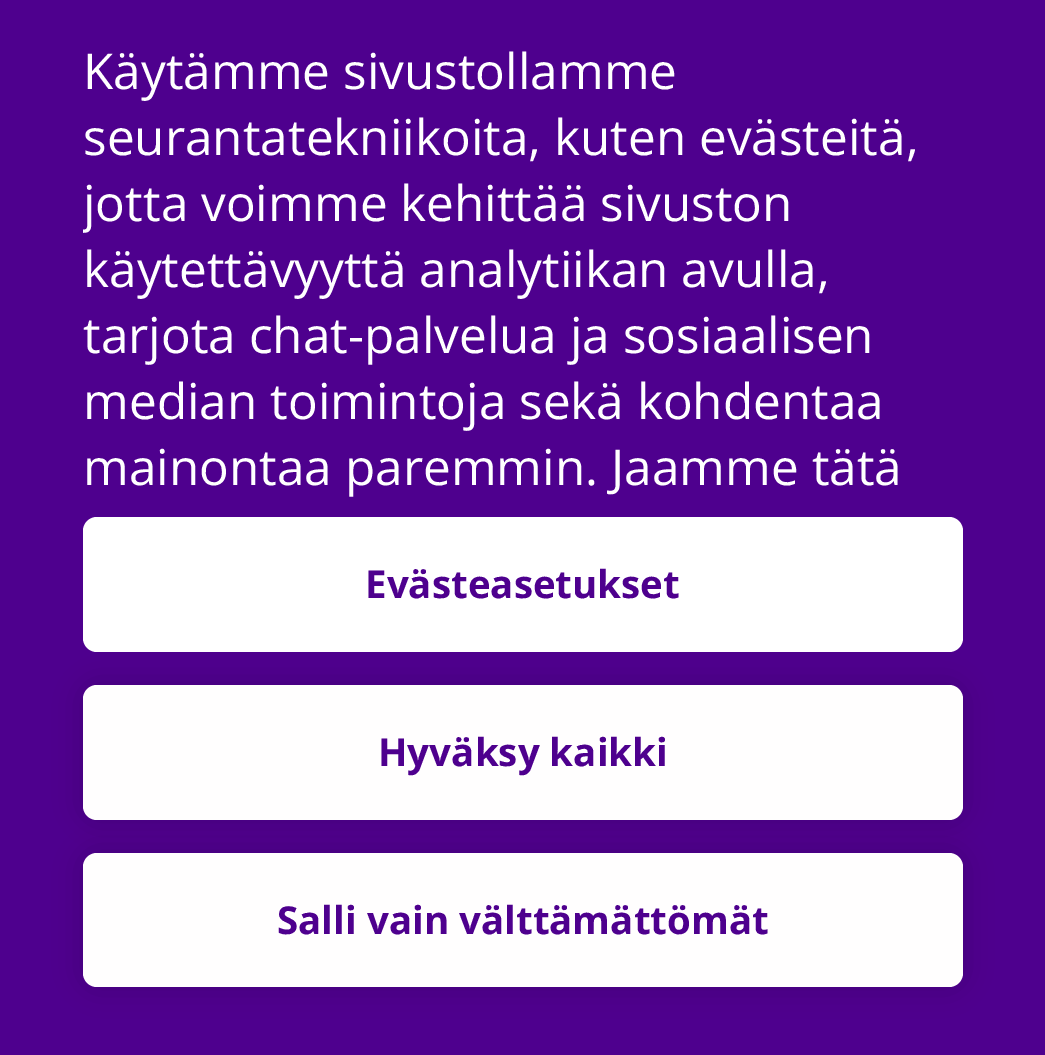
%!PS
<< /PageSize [1045 1055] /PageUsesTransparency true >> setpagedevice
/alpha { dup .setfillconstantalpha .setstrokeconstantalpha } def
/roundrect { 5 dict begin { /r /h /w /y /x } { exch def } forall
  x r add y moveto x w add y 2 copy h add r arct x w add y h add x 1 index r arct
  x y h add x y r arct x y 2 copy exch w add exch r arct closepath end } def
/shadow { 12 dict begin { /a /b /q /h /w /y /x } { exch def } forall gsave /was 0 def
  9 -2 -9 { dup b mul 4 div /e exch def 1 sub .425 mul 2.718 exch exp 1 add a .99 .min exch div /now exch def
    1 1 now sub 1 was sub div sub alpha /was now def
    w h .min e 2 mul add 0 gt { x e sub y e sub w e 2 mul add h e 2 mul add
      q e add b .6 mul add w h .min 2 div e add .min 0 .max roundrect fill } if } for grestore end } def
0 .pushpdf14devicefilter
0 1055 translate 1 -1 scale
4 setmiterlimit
0.306 0 0.557 setrgbcolor
0 0 1045 1055 rectfill
/OpenSans-Regular [49.5 0 0 -49.5 0 0] selectfont
1 setgray
83 89 moveto (Käytämme sivustollamme) show
83 155 moveto (seurantatekniikoita, kuten evästeitä,) show
gsave
83 36 880 481 rectclip
83 221 moveto (jotta voimme kehittää sivuston) show
grestore
83 287 moveto (käytettävyyttä analytiikan avulla,) show
83 353 moveto (tarjota chat-palvelua ja sosiaalisen) show
83 419 moveto (median toimintoja sekä kohdentaa) show
83 485 moveto (mainontaa paremmin. Jaamme tätä) show
83 517 880 135 14 roundrect fill
/OpenSans-Bold [38.5 0 0 -38.5 0 0] selectfont
0.306 0 0.557 setrgbcolor
365 598 moveto (Evästeasetukset) show
0 setgray
83 685 880 135 14 14 0.12 shadow
1 0.996 0.996 setrgbcolor
83 685 880 135 14 roundrect fill
0.306 0 0.557 setrgbcolor
378 766 moveto (Hyväksy kaikki) show
0 setgray
83 853 880 134 14 14 0.12 shadow
1 0.996 0.996 setrgbcolor
83 853 880 134 14 roundrect fill
0.306 0 0.557 setrgbcolor
277 934 moveto (Salli vain välttämättömät) show
.poppdf14devicefilter showpage
